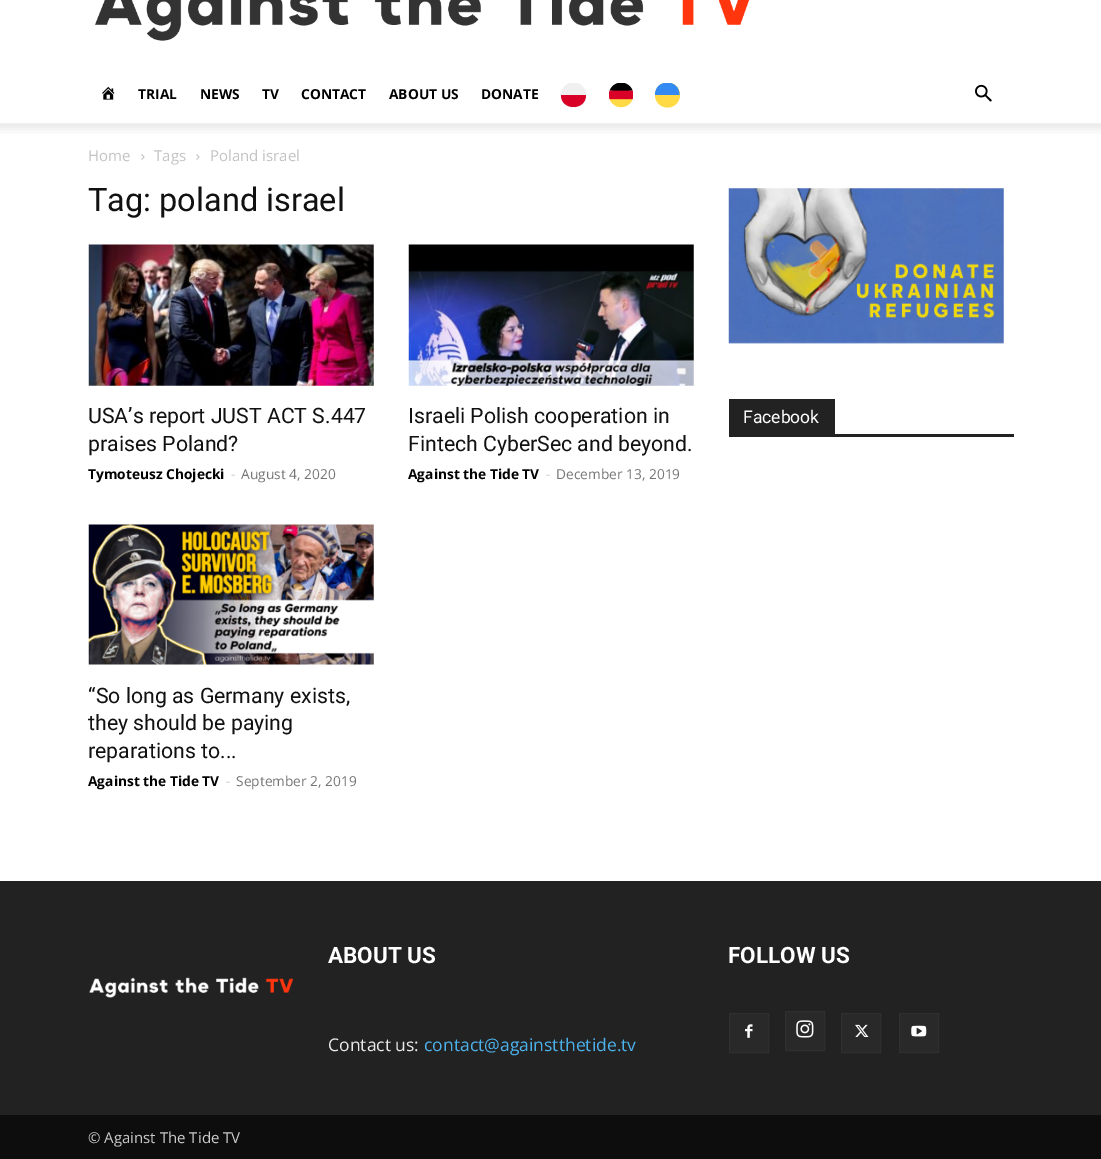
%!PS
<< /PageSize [1101 1159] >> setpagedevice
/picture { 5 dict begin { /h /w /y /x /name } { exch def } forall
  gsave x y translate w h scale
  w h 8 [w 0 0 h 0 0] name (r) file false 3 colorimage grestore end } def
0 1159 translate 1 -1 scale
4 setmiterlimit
1 setgray
0 0 1101 1159 rectfill
(img1.rgb) 95 0 655 41 picture
(img2.rgb) 102 86 13 14 picture
/OpenSans-Bold [13.75 0 0 -13.75 0 0] selectfont
0 setgray
138 99 moveto (TRIAL) show
200 99 moveto (NEWS) show
262 99 moveto (TV) show
301 99 moveto (CONTACT) show
389 99 moveto (ABOUT US) show
481 99 moveto (DONATE) show
gsave
561 83 25 25 rectclip
0.941 setgray
newpath 573.5 95 12.5 0 360 arc closepath fill
grestore
0.847 0 0.153 setrgbcolor
newpath 586 95 moveto 586 111 561 111 561 95 curveto fill
(img3.rgb) 609 83 24 25 picture
gsave
655 83 25 25 rectclip
1 0.855 0.267 setrgbcolor
newpath 667.5 95 12.5 0 360 arc closepath fill
0.2 0.541 0.953 setrgbcolor
newpath 655 95 moveto 655 78.5 679.5 78.5 679.5 95 curveto fill
grestore
(img4.rgb) 975 84 17 18 picture
(img5.rgb) 0 123 1101 11 picture
/OpenSans-Regular [15 0 0 -15 0 0] selectfont
0.765 setgray
88 161 moveto (Home) show
(img6.rgb) 141 154 4 6 picture
154 161 moveto (Tags) show
(img6.rgb) 196 154 4 6 picture
210 161 moveto (Poland israel) show
/Roboto-Regular [32.5 0 0 -32.5 0 0] selectfont
0.067 setgray
88 211 moveto (Tag: poland israel) show
(img7.rgb) 88 244 286 142 picture
/Roboto-Regular [21.25 0 0 -21.25 0 0] selectfont
88 423 moveto (USA’s report JUST ACT S.447) show
88 451 moveto (praises Poland?) show
/OpenSans-Bold [13.75 0 0 -13.75 0 0] selectfont
0 setgray
88 479 moveto (Tymoteusz Chojecki) show
/OpenSans-Regular [13.75 0 0 -13.75 0 0] selectfont
0.8 setgray
231 479 moveto (-) show
0.463 setgray
241 479 moveto (August 4, 2020) show
(img8.rgb) 408 244 286 142 picture
/Roboto-Regular [21.25 0 0 -21.25 0 0] selectfont
0.067 setgray
408 423 moveto (Israeli Polish cooperation in) show
408 451 moveto (Fintech CyberSec and beyond.) show
/OpenSans-Bold [13.75 0 0 -13.75 0 0] selectfont
0 setgray
408 479 moveto (Against the Tide TV) show
/OpenSans-Regular [13.75 0 0 -13.75 0 0] selectfont
0.8 setgray
546 479 moveto (-) show
0.463 setgray
556 479 moveto (December 13, 2019) show
(img9.rgb) 88 524 286 141 picture
/Roboto-Regular [21.25 0 0 -21.25 0 0] selectfont
0.067 setgray
88 703 moveto (“So long as Germany exists,) show
88 730 moveto (they should be paying) show
88 758 moveto (reparations to...) show
/OpenSans-Bold [13.75 0 0 -13.75 0 0] selectfont
0 setgray
88 786 moveto (Against the Tide TV) show
/OpenSans-Regular [13.75 0 0 -13.75 0 0] selectfont
0.8 setgray
226 786 moveto (-) show
0.463 setgray
236 786 moveto (September 2, 2019) show
(img10.rgb) 728 188 276 156 picture
0.133 setgray
729 434 285 3 rectfill
729 399 106 35 rectfill
/Roboto-Regular [17.5 0 0 -17.5 0 0] selectfont
1 setgray
743 423 moveto (Facebook) show
0.133 setgray
0 881 1101 234 rectfill
/Roboto-Bold [22.5 0 0 -22.5 0 0] selectfont
1 setgray
328 963 moveto (ABOUT US) show
/OpenSans-Regular [17.5 0 0 -17.5 0 0] selectfont
0.918 setgray
328 1051 moveto (Contact us:) show
0.302 0.698 0.925 setrgbcolor
424 1051 moveto (contact@againstthetide.tv) show
/Roboto-Bold [22.5 0 0 -22.5 0 0] selectfont
1 setgray
728 963 moveto (FOLLOW US) show
0.161 setgray
730 1014 38 38 rectfill
(img11.rgb) 745 1024 8 14 picture
0.184 setgray
729.5 1013.5 39 39 rectstroke
0.161 setgray
786 1012 38 38 rectfill
(img12.rgb) 796 1020 18 18 picture
0.184 setgray
785.5 1011.5 39 39 rectstroke
0.161 setgray
842 1014 38 38 rectfill
(img13.rgb) 855 1024 14 13 picture
0.184 setgray
841.5 1013.5 39 39 rectstroke
0.161 setgray
900 1014 38 38 rectfill
(img14.rgb) 911 1025 16 12 picture
0.184 setgray
899.5 1013.5 39 39 rectstroke
(img15.rgb) 89 977 205 21 picture
0.051 setgray
0 1115 1101 44 rectfill
/OpenSans-Regular [15 0 0 -15 0 0] selectfont
0.8 setgray
88 1143 moveto (© Against The Tide TV) show
showpage
